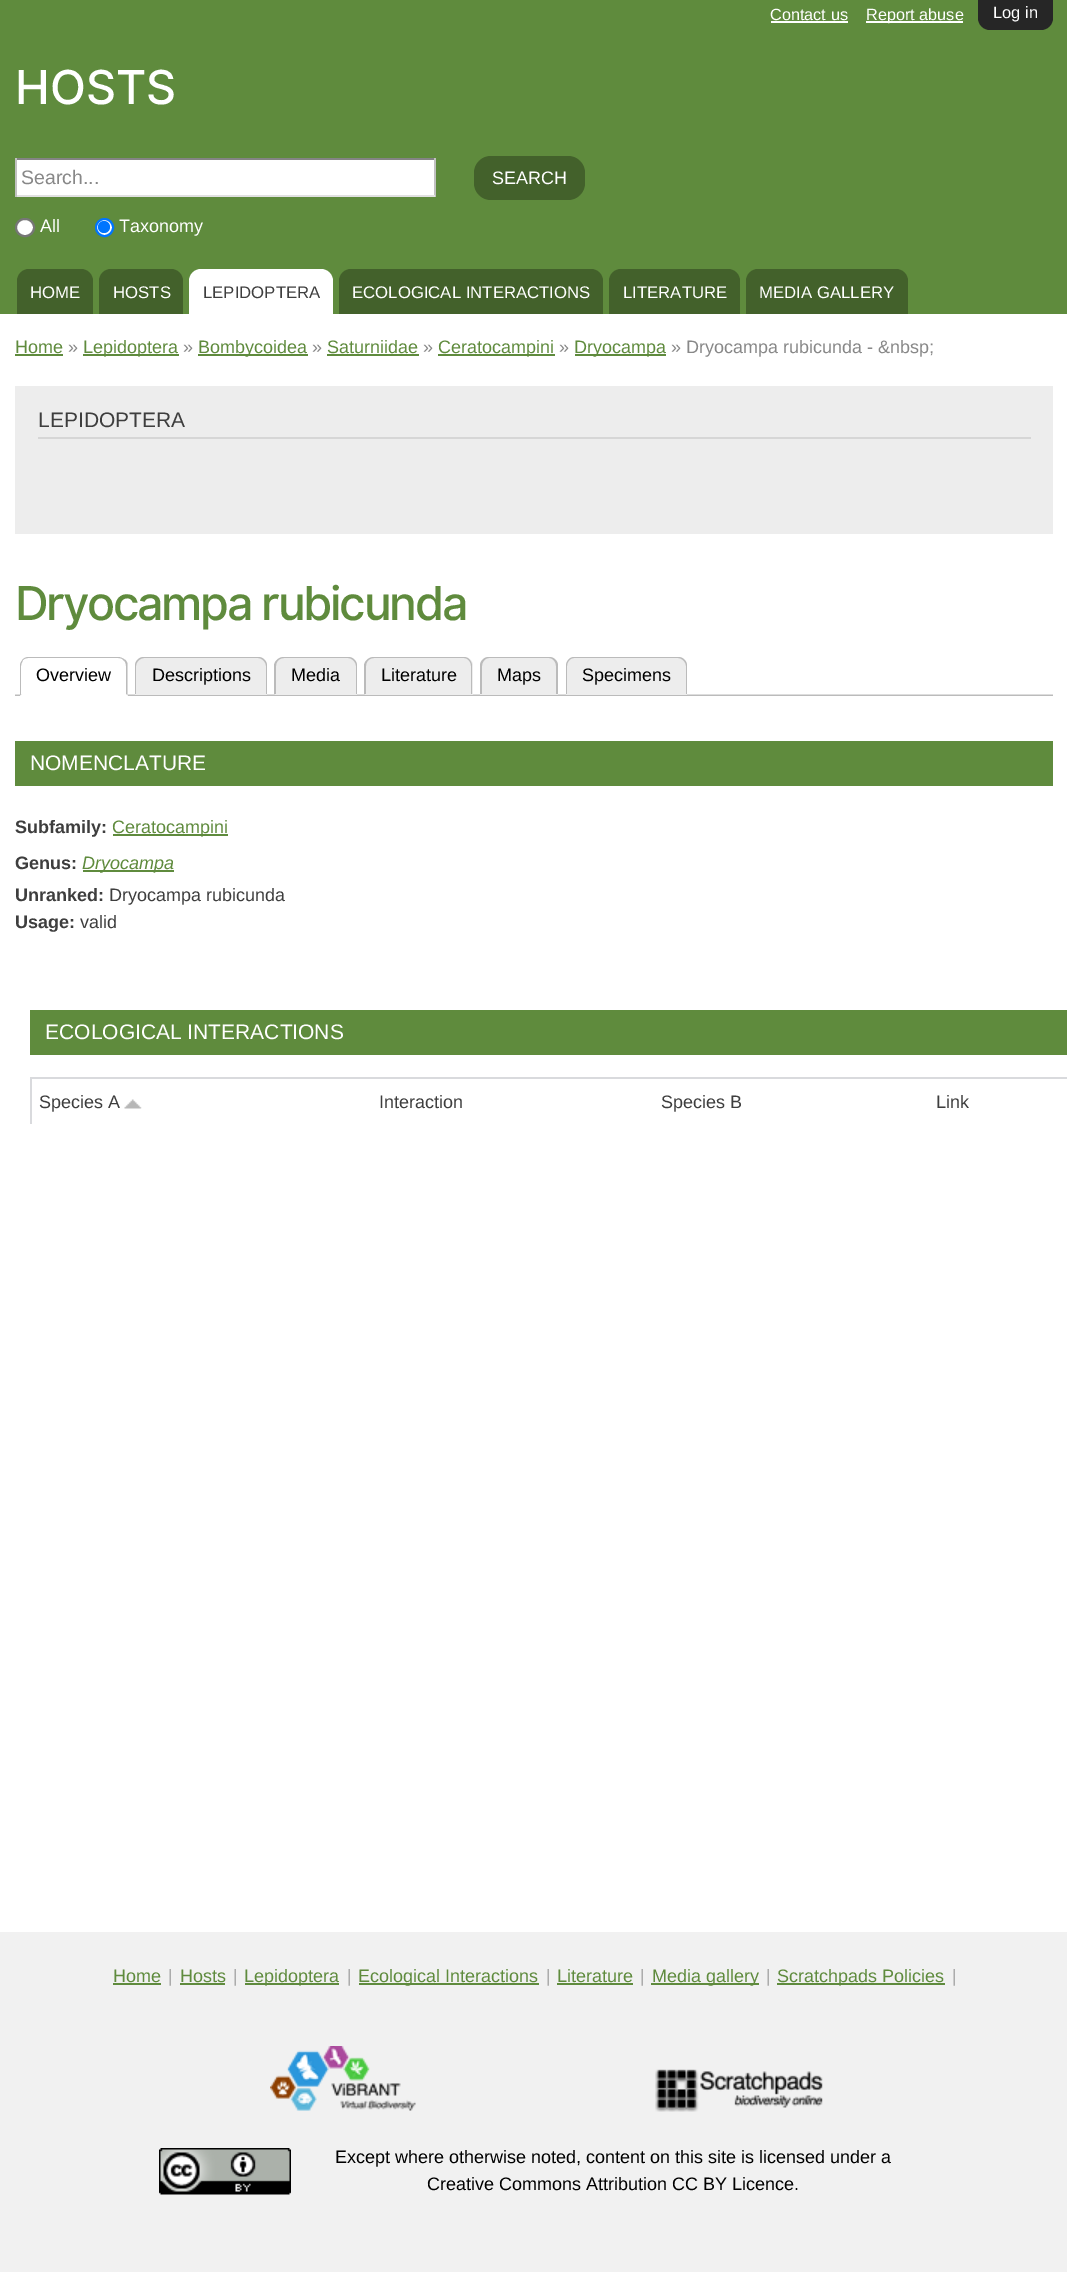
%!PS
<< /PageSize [1067 2272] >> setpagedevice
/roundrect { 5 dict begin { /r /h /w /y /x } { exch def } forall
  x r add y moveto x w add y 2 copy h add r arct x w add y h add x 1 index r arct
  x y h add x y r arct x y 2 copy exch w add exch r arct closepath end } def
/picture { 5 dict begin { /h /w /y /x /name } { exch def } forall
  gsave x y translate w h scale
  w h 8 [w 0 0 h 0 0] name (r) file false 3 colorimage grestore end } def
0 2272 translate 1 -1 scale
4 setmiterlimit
1 setgray
0 0 1067 2272 rectfill
0.373 0.545 0.239 setrgbcolor
0 0 1067 314 rectfill
/LiberationSans-Regular [16.25 0 0 -16.25 0 0] selectfont
1 setgray
770 20 moveto (Contact us) show
771 21 77 2 rectfill
866 21 97 2 rectfill
866 20 moveto (Report abuse) show
/Inter-Medium [46.75 0 0 -46.75 0 0] selectfont
15 104 moveto (HOSTS) show
17 160 417 35 rectfill
0.518 setgray
15 158 420 2 rectfill
0.757 setgray
434 158 2 39 rectfill
0.882 setgray
15 195 420 2 rectfill
0.757 setgray
15 158 2 39 rectfill
/LiberationSans-Regular [19.5 0 0 -19.5 0 0] selectfont
0.533 setgray
21 184 moveto (Search...) show
0.263 0.38 0.169 setrgbcolor
474 156 111 44 17 roundrect fill
/LiberationSans-Regular [18 0 0 -18 0 0] selectfont
1 setgray
492 184 moveto (SEARCH) show
16 219 18 17 8.5 roundrect gsave fill grestore
0.463 setgray
2 setlinewidth
stroke
1 setgray
40 232 moveto (All) show
newpath 104.5 227.5 8.5 0 360 arc closepath gsave fill grestore
0 0.459 1 setrgbcolor
stroke
newpath 104 227 6 0 360 arc closepath fill
1 setgray
119 232 moveto (Taxonomy) show
0.263 0.38 0.169 setrgbcolor
newpath 29 269 moveto 81 269 lineto 87.5 269 93 274.5 93 281 curveto 93 314 lineto 17 314 lineto 17 281 lineto 17 274.5 22.5 269 29 269 curveto closepath fill
/LiberationSans-Regular [16.75 0 0 -16.75 0 0] selectfont
1 setgray
30 298 moveto (HOME) show
0.263 0.38 0.169 setrgbcolor
newpath 111 269 moveto 171 269 lineto 177.5 269 183 274.5 183 281 curveto 183 314 lineto 99 314 lineto 99 281 lineto 99 274.5 104.5 269 111 269 curveto closepath fill
1 setgray
113 298 moveto (HOSTS) show
newpath 201 269 moveto 321 269 lineto 327.5 269 333 274.5 333 281 curveto 333 314 lineto 189 314 lineto 189 281 lineto 189 274.5 194.5 269 201 269 curveto closepath fill
0.243 setgray
203 298 moveto (LEPIDOPTERA) show
0.263 0.38 0.169 setrgbcolor
newpath 351 269 moveto 591 269 lineto 597.5 269 603 274.5 603 281 curveto 603 314 lineto 339 314 lineto 339 281 lineto 339 274.5 344.5 269 351 269 curveto closepath fill
1 setgray
352 298 moveto (ECOLOGICAL INTERACTIONS) show
0.263 0.38 0.169 setrgbcolor
newpath 621 269 moveto 728 269 lineto 734.5 269 740 274.5 740 281 curveto 740 314 lineto 609 314 lineto 609 281 lineto 609 274.5 614.5 269 621 269 curveto closepath fill
1 setgray
623 298 moveto (LITERATURE) show
0.263 0.38 0.169 setrgbcolor
newpath 758 269 moveto 896 269 lineto 902.5 269 908 274.5 908 281 curveto 908 314 lineto 746 314 lineto 746 281 lineto 746 274.5 751.5 269 758 269 curveto closepath fill
1 setgray
759 298 moveto (MEDIA GALLERY) show
0.149 setgray
newpath 978 0 moveto 1053 0 lineto 1053 18 lineto 1053 24.5 1047.5 30 1041 30 curveto 990 30 lineto 983.5 30 978 24.5 978 18 curveto closepath fill
/LiberationSans-Regular [16.5 0 0 -16.5 0 0] selectfont
1 setgray
993 18 moveto (Log in) show
/LiberationSans-Regular [18 0 0 -18 0 0] selectfont
0.373 0.545 0.239 setrgbcolor
15 353 moveto (Home) show
15 354 48 2 rectfill
0.533 setgray
68 353 moveto (») show
0.373 0.545 0.239 setrgbcolor
83 354 96 2 rectfill
83 353 moveto (Lepidoptera) show
0.533 setgray
183 353 moveto (») show
0.373 0.545 0.239 setrgbcolor
198 354 110 2 rectfill
198 353 moveto (Bombycoidea) show
0.533 setgray
312 353 moveto (») show
0.373 0.545 0.239 setrgbcolor
327 353 moveto (Saturniidae) show
327 354 92 2 rectfill
0.533 setgray
423 353 moveto (») show
0.373 0.545 0.239 setrgbcolor
438 354 117 2 rectfill
438 353 moveto (Ceratocampini) show
0.533 setgray
559 353 moveto (») show
0.373 0.545 0.239 setrgbcolor
575 354 91 2 rectfill
574 353 moveto (Dryocampa) show
0.533 setgray
671 353 moveto (» Dryocampa rubicunda - &nbsp;) show
0.929 setgray
15 386 1038 148 rectfill
0.839 setgray
38 437 993 2 rectfill
/LiberationSans-Regular [21 0 0 -21 0 0] selectfont
0.243 setgray
38 427 moveto (LEPIDOPTERA) show
/Inter-Medium [46.75 0 0 -46.75 0 0] selectfont
0.373 0.545 0.239 setrgbcolor
15 620 moveto -2.3 0 (Dryocampa rubicunda) ashow
(img1.rgb) 15 694 1038 2 picture
1 setgray
newpath 29 657 moveto 119 657 lineto 124 657 128 661 128 666 curveto 128 696 lineto 20 696 lineto 20 666 lineto 20 661 24 657 29 657 curveto closepath fill
0.733 setgray
newpath 28 657 moveto 26 657 24 658 22 660 curveto 23 660 lineto 24 659 26 658 28 658 curveto 118 658 lineto 121 658 123 659 124 661 curveto 125 660 lineto 123 658 120 657 118 657 curveto closepath fill
newpath 127.5 663.5 moveto 127.5 696 lineto 125.5 694 lineto 126 694 lineto 126 666 lineto 126 664 125.5 662 124 660.5 curveto 125 659.5 lineto 126 660.5 127 662 127.5 663.5 curveto closepath fill
1 setgray
newpath 128 696 moveto 126 694 lineto 22 694 lineto 20 696 lineto closepath fill
0.733 setgray
newpath 22.5 660 moveto 21 661.5 20 663.5 20 666 curveto 20 695.5 lineto 21.5 694 lineto 21 694 lineto 21 666 lineto 21 664 22 662 23 660.5 curveto closepath fill
/LiberationSans-Regular [18 0 0 -18 0 0] selectfont
0 setgray
36 681 moveto (Overview) show
0.929 setgray
newpath 144 657 moveto 258 657 lineto 263 657 267 661 267 666 curveto 267 695 lineto 135 695 lineto 135 666 lineto 135 661 139 657 144 657 curveto closepath fill
0.733 setgray
newpath 144 657 moveto 258 657 lineto 263 657 267 661 267 666 curveto 267 694 lineto 135 694 lineto 135 666 lineto 135 661 139 657 144 657 curveto closepath 144 658 moveto 258 658 lineto 262 658 266 662 266 666 curveto 266 694 lineto 136 694 lineto 136 666 lineto 136 662 140 658 144 658 curveto closepath eofill
0 setgray
152 681 moveto (Descriptions) show
0.929 setgray
newpath 284 657 moveto 348 657 lineto 353 657 357 661 357 666 curveto 357 695 lineto 275 695 lineto 275 666 lineto 275 661 279 657 284 657 curveto closepath fill
0.733 setgray
newpath 284 657 moveto 348 657 lineto 353 657 357 661 357 666 curveto 357 694 lineto 274 694 lineto 274 666 lineto 274 661 279 657 284 657 curveto closepath 284 658 moveto 348 658 lineto 352 658 356 662 356 666 curveto 356 694 lineto 276 694 lineto 276 666 lineto 276 662 279 658 284 658 curveto closepath eofill
0 setgray
291 681 moveto (Media) show
0.929 setgray
newpath 374 657 moveto 464 657 lineto 469 657 473 661 473 666 curveto 473 695 lineto 365 695 lineto 365 666 lineto 365 661 369 657 374 657 curveto closepath fill
0.733 setgray
newpath 374 657 moveto 464 657 lineto 468 657 472 661 472 666 curveto 472 694 lineto 364 694 lineto 364 666 lineto 364 661 369 657 374 657 curveto closepath 374 658 moveto 464 658 lineto 468 658 471 662 471 666 curveto 471 694 lineto 366 694 lineto 366 666 lineto 366 662 369 658 374 658 curveto closepath eofill
0 setgray
381 681 moveto (Literature) show
0.929 setgray
newpath 489 657 moveto 549 657 lineto 554 657 558 661 558 666 curveto 558 695 lineto 480 695 lineto 480 666 lineto 480 661 484 657 489 657 curveto closepath fill
0.733 setgray
newpath 489 657 moveto 549 657 lineto 554 657 558 661 558 666 curveto 558 694 lineto 480 694 lineto 480 666 lineto 480 661 484 657 489 657 curveto closepath 489 658 moveto 549 658 lineto 553 658 556 662 556 666 curveto 556 694 lineto 482 694 lineto 482 666 lineto 482 662 485 658 489 658 curveto closepath eofill
0 setgray
497 681 moveto (Maps) show
0.929 setgray
newpath 575 657 moveto 678 657 lineto 683 657 687 661 687 666 curveto 687 695 lineto 566 695 lineto 566 666 lineto 566 661 570 657 575 657 curveto closepath fill
0.733 setgray
newpath 574 657 moveto 678 657 lineto 683 657 687 661 687 666 curveto 687 694 lineto 566 694 lineto 566 666 lineto 566 661 570 657 574 657 curveto closepath 574 658 moveto 678 658 lineto 682 658 686 662 686 666 curveto 686 694 lineto 567 694 lineto 567 666 lineto 567 662 570 658 574 658 curveto closepath eofill
0 setgray
582 681 moveto (Specimens) show
0.373 0.545 0.239 setrgbcolor
15 741 1038 45 rectfill
/LiberationSans-Regular [21 0 0 -21 0 0] selectfont
1 setgray
30 770 moveto (NOMENCLATURE) show
/LiberationSans-Bold [18 0 0 -18 0 0] selectfont
0.243 setgray
15 833 moveto (Subfamily:) show
0.373 0.545 0.239 setrgbcolor
113 834 115 2 rectfill
/LiberationSans-Regular [18 0 0 -18 0 0] selectfont
112 833 moveto (Ceratocampini) show
/LiberationSans-Bold [18 0 0 -18 0 0] selectfont
0.243 setgray
15 869 moveto (Genus:) show
0.373 0.545 0.239 setrgbcolor
83 870 91 2 rectfill
/LiberationSans-Italic [18 0 0 -18 0 0] selectfont
82 869 moveto (Dryocampa) show
/LiberationSans-Bold [18 0 0 -18 0 0] selectfont
0.243 setgray
15 901 moveto (Unranked:) show
/LiberationSans-Regular [18 0 0 -18 0 0] selectfont
109 901 moveto (Dryocampa rubicunda) show
/LiberationSans-Bold [18 0 0 -18 0 0] selectfont
15 928 moveto (Usage:) show
/LiberationSans-Regular [18 0 0 -18 0 0] selectfont
80 928 moveto (valid) show
0.373 0.545 0.239 setrgbcolor
30 1010 1037 45 rectfill
/LiberationSans-Regular [21 0 0 -21 0 0] selectfont
1 setgray
45 1039 moveto (ECOLOGICAL INTERACTIONS) show
0.851 0.855 0.867 setrgbcolor
30 1077 1037 2 rectfill
30 1077 2 47 rectfill
/LiberationSans-Regular [18 0 0 -18 0 0] selectfont
0.243 setgray
39 1108 moveto (Species A) show
(img2.rgb) 124 1099 18 10 picture
379 1108 moveto (Interaction) show
661 1108 moveto (Species B) show
936 1108 moveto (Link) show
0.945 setgray
0 1932 1067 340 rectfill
0.373 0.545 0.239 setrgbcolor
113 1982 moveto (Home) show
113 1983 48 2 rectfill
0.675 setgray
168 1982 moveto (|) show
0.373 0.545 0.239 setrgbcolor
180 1982 moveto (Hosts) show
180 1983 45 2 rectfill
0.675 setgray
233 1982 moveto (|) show
0.373 0.545 0.239 setrgbcolor
245 1983 94 2 rectfill
244 1982 moveto (Lepidoptera) show
0.675 setgray
347 1982 moveto (|) show
0.373 0.545 0.239 setrgbcolor
359 1983 180 2 rectfill
358 1982 moveto (Ecological Interactions) show
0.675 setgray
546 1982 moveto (|) show
0.373 0.545 0.239 setrgbcolor
557 1982 moveto (Literature) show
557 1983 76 2 rectfill
0.675 setgray
640 1982 moveto (|) show
0.373 0.545 0.239 setrgbcolor
651 1983 108 2 rectfill
652 1982 moveto (Media gallery) show
0.675 setgray
766 1982 moveto (|) show
0.373 0.545 0.239 setrgbcolor
777 1983 168 2 rectfill
777 1982 moveto (Scratchpads Policies) show
0.675 setgray
952 1982 moveto (|) show
(img3.rgb) 270 2046 146 65 picture
(img4.rgb) 655 2069 168 43 picture
(img5.rgb) 159 2148 132 47 picture
0 setgray
335 2163 moveto (Except where otherwise noted, content on this site is licensed under a) show
427 2190 moveto (Creative Commons Attribution CC BY Licence.) show
showpage
